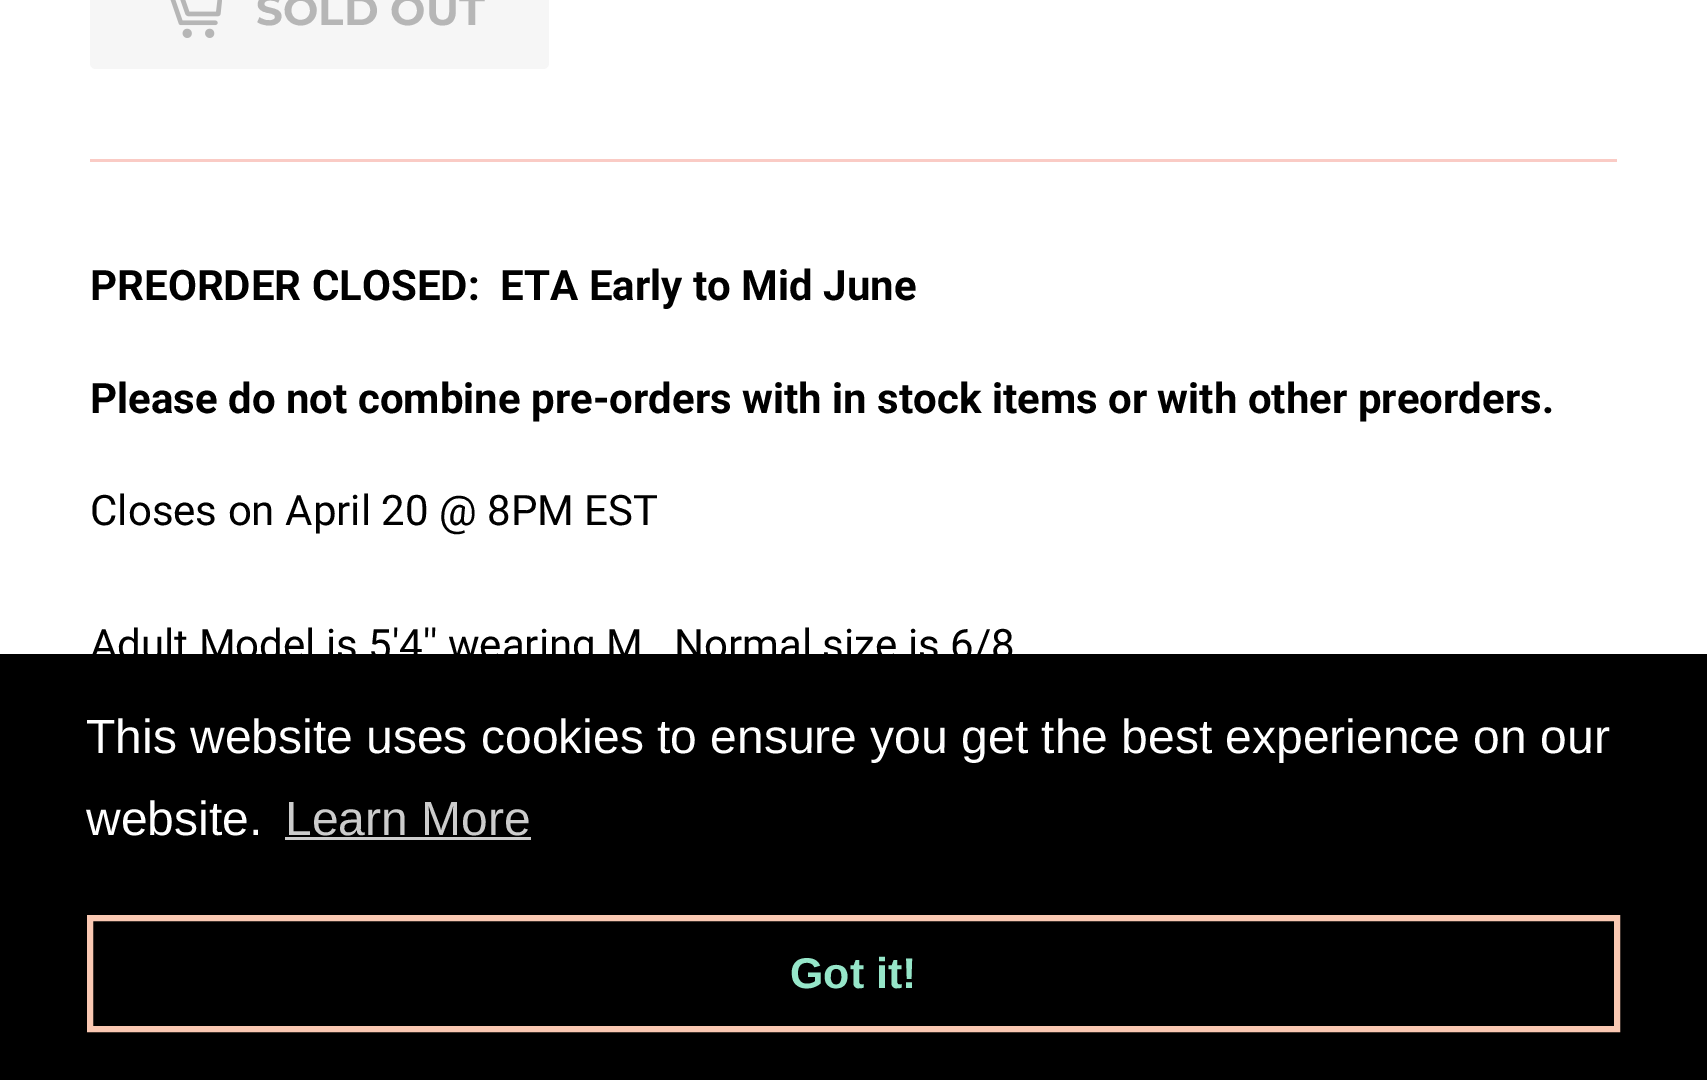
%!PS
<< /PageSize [1707 1080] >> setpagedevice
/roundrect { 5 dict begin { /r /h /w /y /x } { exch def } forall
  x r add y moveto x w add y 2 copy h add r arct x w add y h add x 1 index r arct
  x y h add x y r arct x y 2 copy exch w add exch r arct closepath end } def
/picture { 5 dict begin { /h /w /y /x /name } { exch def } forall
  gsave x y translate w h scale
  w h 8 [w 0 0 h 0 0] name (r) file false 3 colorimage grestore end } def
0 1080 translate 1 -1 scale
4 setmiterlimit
1 setgray
0 0 1707 1080 rectfill
0.965 setgray
90 -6 459 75 6 roundrect fill
(img1.rgb) 170 0 52 38 picture
/Montserrat-Thin [42 0 0 -42 0 0] selectfont
0.714 setgray
256 25 moveto (SOLD OUT) show
0.98 0.796 0.773 setrgbcolor
90 159 1527 3 rectfill
/Roboto-Bold [42 0 0 -42 0 0] selectfont
0 setgray
90 300 moveto (PREORDER CLOSED:  ETA Early to Mid June) show
90 413 moveto (Please do not combine pre-orders with in stock items or with other preorders.) show
/Roboto-Regular [42 0 0 -42 0 0] selectfont
90 525 moveto (Closes on April 20 @ 8PM EST) show
90 659 moveto (Adult Model is 5'4'' wearing M   Normal size is 6/8) show
0 654 1707 426 rectfill
/LiberationSans-Regular [48 0 0 -48 0 0] selectfont
1 setgray
86 753 moveto (This website uses cookies to ensure you get the best experience on our) show
86 835 moveto (website.) show
0.8 setgray
285 835 moveto (Learn More) show
285 837 246 3 rectfill
0.98 0.784 0.698 setrgbcolor
6 setlinewidth
90 918 1527 111 rectstroke
/LiberationSans-Bold [43 0 0 -43 0 0] selectfont
0.588 0.902 0.788 setrgbcolor
790 988 moveto (Got it!) show
showpage
